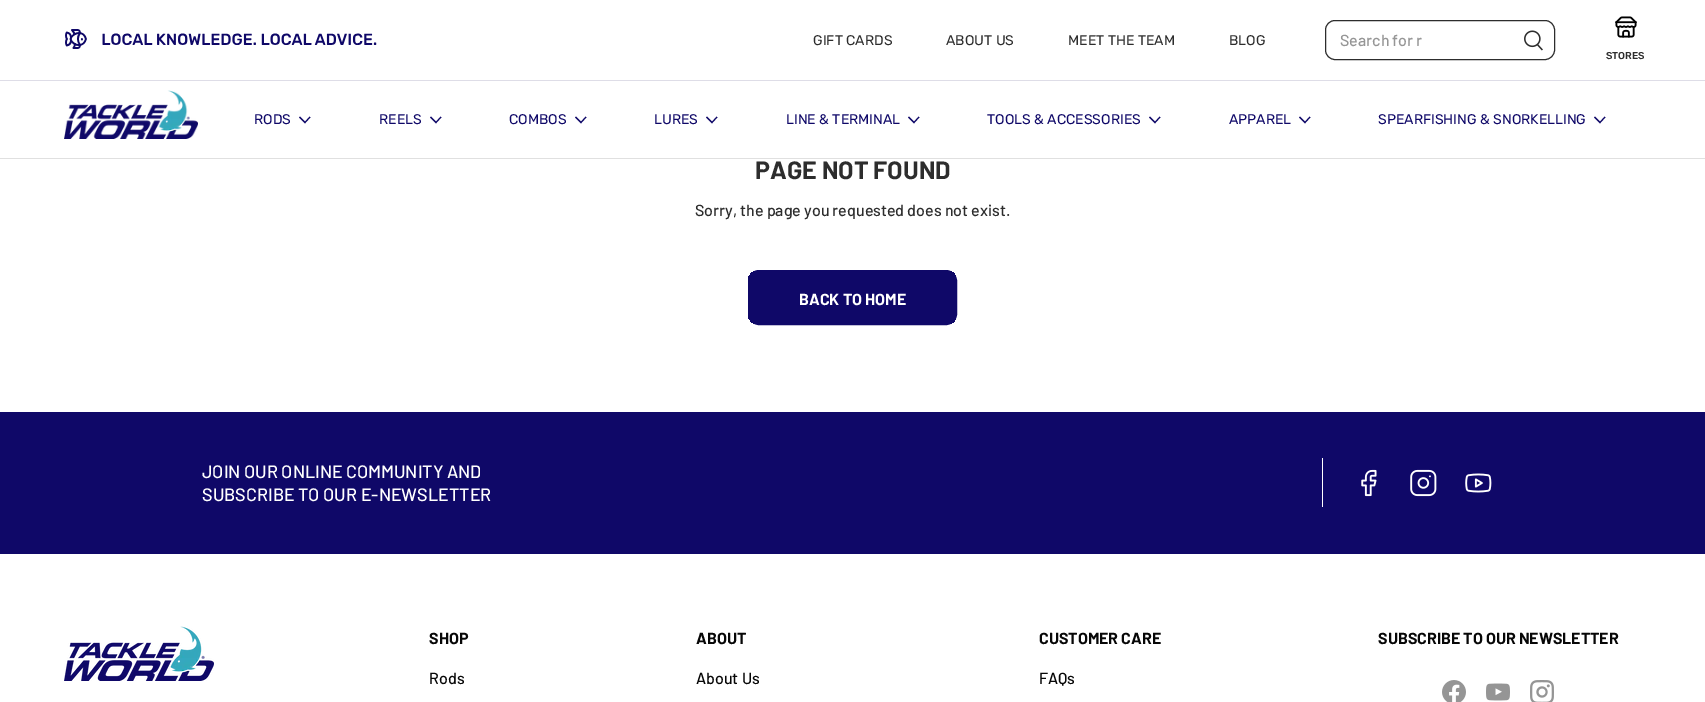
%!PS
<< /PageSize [1705 702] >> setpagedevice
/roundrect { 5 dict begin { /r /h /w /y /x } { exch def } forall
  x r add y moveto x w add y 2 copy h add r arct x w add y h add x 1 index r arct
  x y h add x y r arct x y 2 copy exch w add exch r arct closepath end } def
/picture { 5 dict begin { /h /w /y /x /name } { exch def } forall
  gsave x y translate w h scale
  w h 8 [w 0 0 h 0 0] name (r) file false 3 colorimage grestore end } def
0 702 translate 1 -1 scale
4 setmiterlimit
1 setgray
0 0 1705 702 rectfill
0.878 setgray
0 158 1705 1 rectfill
(img1.rgb) 65 29 312 20 picture
/Rubik-Regular [14 0 0 -14 0 0] selectfont
0.176 setgray
813 45 moveto (GIFT CARDS) show
946 45 moveto (ABOUT US) show
1068 45 moveto (MEET THE TEAM) show
1229 45 moveto (BLOG) show
1325.5 20.5 229 39 9.5 roundrect stroke
/Barlow-Medium [16 0 0 -16 0 0] selectfont
0.588 setgray
1340 46 moveto (Search for r) show
(img2.rgb) 1524 30 19 21 picture
(img3.rgb) 1615 16 22 22 picture
/Rubik-Medium [10 0 0 -10 0 0] selectfont
0.176 setgray
1606 59 moveto (STORES) show
0.871 0.867 0.906 setrgbcolor
0 80 1705 1 rectfill
(img4.rgb) 64 90 134 49 picture
/Rubik-Regular [14 0 0 -14 0 0] selectfont
0.059 0.031 0.408 setrgbcolor
254 124 moveto (RODS) show
1.1 setlinewidth
newpath 310 117 moveto 305 122.5 lineto 299.5 117 lineto stroke
379 124 moveto (REELS) show
newpath 441 117 moveto 436 122.5 lineto 430.5 117 lineto stroke
509 124 moveto (COMBOS) show
newpath 586 117 moveto 581 122.5 lineto 575.5 117 lineto stroke
654 124 moveto (LURES) show
newpath 717 117 moveto 712 122.5 lineto 706.5 117 lineto stroke
786 124 moveto (LINE & TERMINAL) show
newpath 919 117 moveto 914 122.5 lineto 908.5 117 lineto stroke
987 124 moveto (TOOLS & ACCESSORIES) show
newpath 1160 117 moveto 1155 122.5 lineto 1149.5 117 lineto stroke
1229 124 moveto (APPAREL) show
newpath 1310 117 moveto 1305 122.5 lineto 1299.5 117 lineto stroke
1378 124 moveto (SPEARFISHING & SNORKELLING) show
newpath 1605 117 moveto 1600 122.5 lineto 1594.5 117 lineto stroke
/Barlow-Bold [25 0 0 -25 0 0] selectfont
0.176 setgray
755 179 moveto (PAGE NOT FOUND) show
/Barlow-Medium [16 0 0 -16 0 0] selectfont
695 216 moveto (Sorry, the page you requested does not exist.) show
gsave
748 270 209 55 11 roundrect clip newpath
gsave newpath 748 271 moveto 956 271 lineto 956 324 lineto 748 324 lineto closepath clip newpath
<< /ShadingType 2 /ColorSpace /DeviceRGB /Coords [347 223 944 372] /Extend [true true] /Function << /FunctionType 3 /Domain [0 1] /Functions [<< /FunctionType 2 /Domain [0 1] /C0 [0.22 0.192 0.541] /C1 [0.22 0.192 0.541] /N 1 >> << /FunctionType 2 /Domain [0 1] /C0 [0.059 0.031 0.408] /C1 [0.059 0.031 0.408] /N 1 >>] /Bounds [0.6] /Encode [0 1 0 1] >> >> shfill grestore
grestore
0.059 0.031 0.408 setrgbcolor
1 setlinewidth
748.5 270.5 208 54 10.5 roundrect stroke
/Barlow-Bold [16 0 0 -16 0 0] selectfont
1 setgray
799 305 moveto (BACK TO HOME) show
0.059 0.031 0.408 setrgbcolor
0 412 1705 142 rectfill
/Barlow-Medium [18 0 0 -18 0 0] selectfont
1 setgray
202 478 moveto (JOIN OUR ONLINE COMMUNITY AND) show
202 501 moveto (SUBSCRIBE TO OUR E-NEWSLETTER) show
1322 458 1 49 rectfill
(img5.rgb) 1361 469 16 28 picture
(img6.rgb) 1410 469 27 28 picture
(img7.rgb) 1465 473 27 20 picture
(img8.rgb) 64 626 150 55 picture
/Barlow-Bold [16 0 0 -16 0 0] selectfont
0.027 setgray
429 644 moveto (SHOP) show
/Barlow-Medium [16 0 0 -16 0 0] selectfont
429 684 moveto (Rods) show
/Barlow-Bold [16 0 0 -16 0 0] selectfont
696 644 moveto (ABOUT) show
/Barlow-Medium [16 0 0 -16 0 0] selectfont
696 684 moveto (About Us) show
/Barlow-Bold [16 0 0 -16 0 0] selectfont
1039 644 moveto (CUSTOMER CARE) show
/Barlow-Medium [16 0 0 -16 0 0] selectfont
1039 684 moveto (FAQs) show
/Barlow-Bold [16 0 0 -16 0 0] selectfont
1378 644 moveto (SUBSCRIBE TO OUR NEWSLETTER) show
(img9.rgb) 1442 680 24 22 picture
(img10.rgb) 1486 683 24 18 picture
(img11.rgb) 1530 680 24 22 picture
showpage
